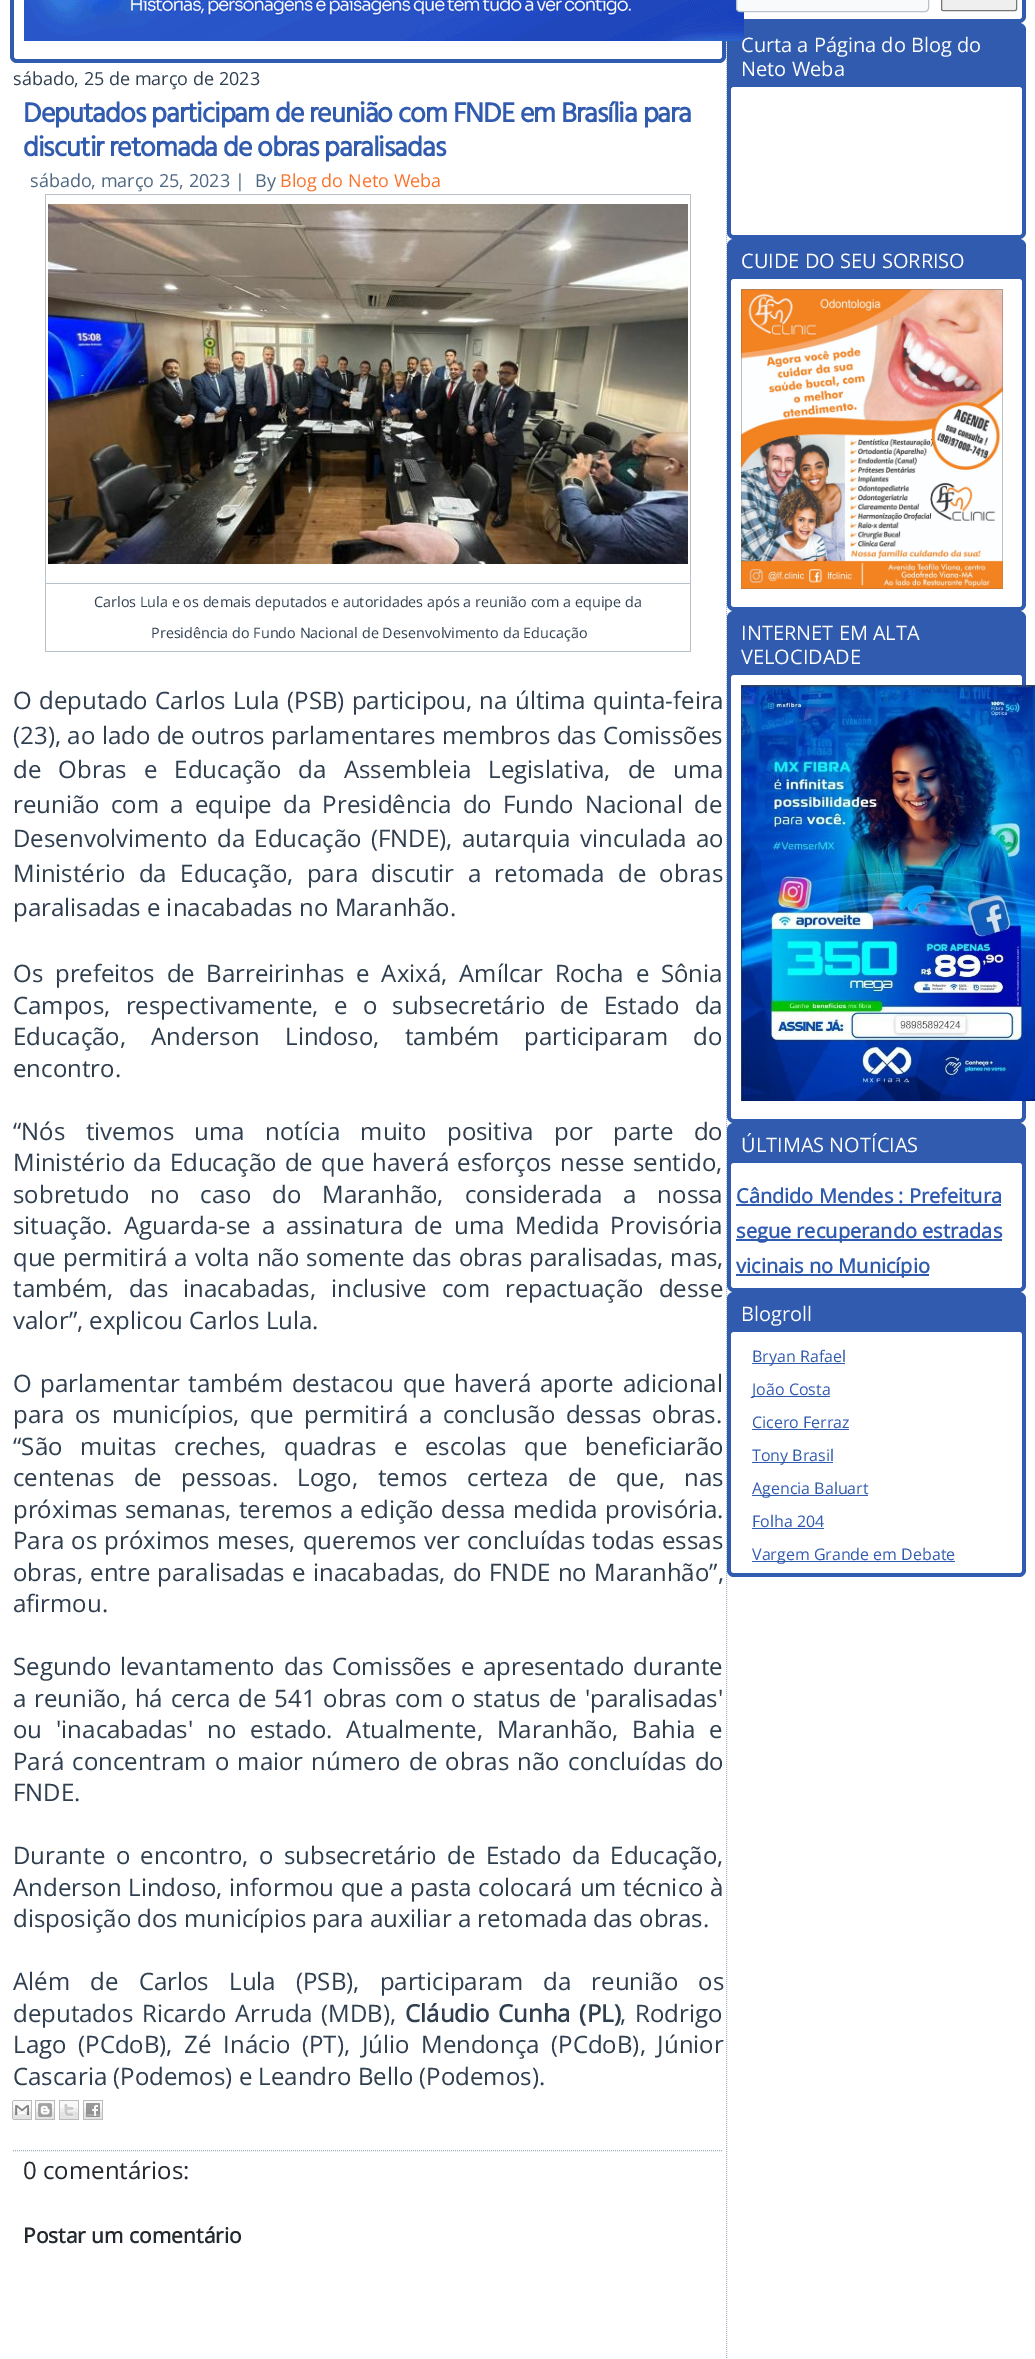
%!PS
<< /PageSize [1035 2359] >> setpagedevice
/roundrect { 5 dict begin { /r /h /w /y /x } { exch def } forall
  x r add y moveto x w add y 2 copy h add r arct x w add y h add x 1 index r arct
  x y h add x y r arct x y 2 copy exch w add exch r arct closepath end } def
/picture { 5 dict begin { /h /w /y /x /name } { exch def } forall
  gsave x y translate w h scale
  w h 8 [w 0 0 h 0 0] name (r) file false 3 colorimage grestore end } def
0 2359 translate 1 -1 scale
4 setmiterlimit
1 setgray
0 0 1035 2359 rectfill
0.192 0.357 0.686 setrgbcolor
10 -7 716 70 7 roundrect fill
1 setgray
14 -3 708 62 3 roundrect fill
0.639 0.706 0.784 setrgbcolor
[1 1] 0 setdash
newpath 726.5 -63 moveto 726.5 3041 lineto stroke
0.192 0.357 0.686 setrgbcolor
727 -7 299 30 7 roundrect fill
1 setgray
731 -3 291 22 3 roundrect fill
0.192 0.357 0.686 setrgbcolor
727 23 299 216 7 roundrect fill
(img1.rgb) 24 0 720 41 picture
/OpenSans-Regular [18 0 0 -18 0 0] selectfont
0.188 0.247 0.314 setrgbcolor
13 85 moveto (sábado, 25 de março de 2023) show
/HindVadodara-Bold [28 0 0 -28 0 0] selectfont
0.192 0.357 0.686 setrgbcolor
23 122 moveto -1 0 (Deputados participam de reunião com FNDE em Brasília para) ashow
23 156 moveto -1 0 (discutir retomada de obras paralisadas) ashow
/OpenSans-Regular [18 0 0 -18 0 0] selectfont
0.306 0.408 0.514 setrgbcolor
30 187 moveto (sábado, março 25, 2023 |) show
255 187 moveto (By) show
0.984 0.447 0.176 setrgbcolor
280 187 moveto (Blog do Neto Weba) show
0.725 0.761 0.796 setrgbcolor
45 194 646 1 rectfill
45 583 646 1 rectfill
690 583 1 69 rectfill
690 194 1 390 rectfill
45 651 646 1 rectfill
45 583 1 69 rectfill
45 194 1 390 rectfill
(img2.rgb) 48 204 640 360 picture
/OpenSans-Regular [14.4 0 0 -14.4 0 0] selectfont
0.188 0.247 0.314 setrgbcolor
94 607 moveto (Carlos Lula e os demais deputados e autoridades após a reunião com a equipe da) show
151 638 moveto (Presidência do Fundo Nacional de Desenvolvimento da Educação) show
/OpenSans-Regular [24 0 0 -24 0 0] selectfont
13 709 moveto 1.25 0 32 (O deputado Carlos Lula \(PSB\) participou, na última quinta-feira) widthshow
13 744 moveto 0.25 0 32 (\(23\), ao lado de outros parlamentares membros das Comissões) widthshow
13 778 moveto 11 0 32 (de Obras e Educação da Assembleia Legislativa, de uma) widthshow
13 813 moveto 5 0 32 (reunião com a equipe da Presidência do Fundo Nacional de) widthshow
13 847 moveto 3.25 0 32 (Desenvolvimento da Educação \(FNDE\), autarquia vinculada ao) widthshow
13 882 moveto 7.25 0 32 (Ministério da Educação, para discutir a retomada de obras) widthshow
13 916 moveto (paralisadas e inacabadas no Maranhão.) show
13 982 moveto 5.5 0 32 (Os prefeitos de Barreirinhas e Axixá, Amílcar Rocha e Sônia) widthshow
13 1014 moveto 9 0 32 (Campos, respectivamente, e o subsecretário de Estado da) widthshow
13 1045 moveto 19 0 32 (Educação, Anderson Lindoso, também participaram do) widthshow
13 1077 moveto (encontro.) show
13 1140 moveto 14.25 0 32 (“Nós tivemos uma notícia muito positiva por parte do) widthshow
13 1171 moveto 2 0 32 (Ministério da Educação de que haverá esforços nesse sentido,) widthshow
13 1203 moveto 14.75 0 32 (sobretudo no caso do Maranhão, considerada a nossa) widthshow
13 1234 moveto 5 0 32 (situação. Aguarda-se a assinatura de uma Medida Provisória) widthshow
13 1266 moveto 1 0 32 (que permitirá a volta não somente das obras paralisadas, mas,) widthshow
13 1297 moveto 8.75 0 32 (também, das inacabadas, inclusive com repactuação desse) widthshow
13 1329 moveto (valor”, explicou Carlos Lula.) show
13 1392 moveto 2.5 0 32 (O parlamentar também destacou que haverá aporte adicional) widthshow
13 1423 moveto 4.5 0 32 (para os municípios, que) widthshow
304 1423 moveto 4.5 0 32 (permitirá a conclusão dessas obras.) widthshow
13 1455 moveto 11.5 0 32 (“São muitas creches, quadras e escolas que beneficiarão) widthshow
13 1486 moveto 13.25 0 32 (centenas de pessoas. Logo, temos certeza de que, nas) widthshow
13 1518 moveto 1.25 0 32 (próximas semanas, teremos a edição dessa medida provisória.) widthshow
13 1549 moveto 1 0 32 (Para os próximos meses, queremos ver concluídas todas essas) widthshow
13 1581 moveto 1 0 32 (obras, entre paralisadas e inacabadas, do FNDE no Maranhão”,) widthshow
13 1612 moveto (afirmou.) show
13 1675 moveto 2.5 0 32 (Segundo levantamento das Comissões e apresentado durante) widthshow
13 1707 moveto 1.6 0 32 (a reunião, há cerca de 541 obras com o status de 'paralisadas') widthshow
13 1738 moveto 7.75 0 32 (ou 'inacabadas' no estado. Atualmente, Maranhão, Bahia e) widthshow
13 1770 moveto 2 0 32 (Pará concentram o maior número de obras não concluídas do) widthshow
13 1801 moveto (FNDE.) show
13 1864 moveto 4.25 0 32 (Durante o encontro, o subsecretário de Estado da Educação,) widthshow
13 1896 moveto 0.5 0 32 (Anderson Lindoso, informou que a pasta colocará um técnico à) widthshow
13 1927 moveto (disposição dos municípios para auxiliar a retomada das obras.) show
13 1990 moveto 14 0 32 (Além de Carlos Lula \(PSB\), participaram da reunião os) widthshow
13 2022 moveto 2.5 0 32 (deputados Ricardo Arruda \(MDB\),) widthshow
/OpenSans-Bold [24 0 0 -24 0 0] selectfont
405 2022 moveto 2.5 0 32 (Cláudio Cunha \(PL\)) widthshow
/OpenSans-Regular [24 0 0 -24 0 0] selectfont
620 2022 moveto 2.5 0 32 (, Rodrigo) widthshow
13 2053 moveto 5.5 0 32 (Lago \(PCdoB\), Zé Inácio \(PT\), Júlio Mendonça \(PCdoB\), Júnior) widthshow
13 2085 moveto (Cascaria \(Podemos\) e Leandro Bello \(Podemos\).) show
(img3.rgb) 12 2100 20 20 picture
(img4.rgb) 35 2100 20 20 picture
(img5.rgb) 59 2100 20 20 picture
(img6.rgb) 83 2100 20 20 picture
0.631 0.678 0.729 setrgbcolor
newpath 13 2150.5 moveto 723 2150.5 lineto stroke
0.137 0.161 0.184 setrgbcolor
23 2179 moveto (0 comentários:) show
/OpenSans-Bold [21 0 0 -21 0 0] selectfont
23 2243 moveto (Postar um comentário) show
0.976 0.98 0.984 setrgbcolor
736.5 -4.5 192 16 3.5 roundrect gsave fill grestore
0.725 0.761 0.796 setrgbcolor
[] 0 setdash
stroke
0.937 setgray
941.5 -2.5 75 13 1.5 roundrect gsave fill grestore
0.463 setgray
stroke
/OpenSans-Regular [20 0 0 -20 0 0] selectfont
1 setgray
741 52 moveto (Curta a Página do Blog do) show
741 76 moveto (Neto Weba) show
731 87 291 148 3 roundrect fill
0.192 0.357 0.686 setrgbcolor
727 239 299 372 7 roundrect fill
1 setgray
741 268 moveto (CUIDE DO SEU SORRISO) show
731 279 291 328 3 roundrect fill
(img7.rgb) 741 289 262 300 picture
0.192 0.357 0.686 setrgbcolor
727 611 299 512 7 roundrect fill
1 setgray
741 640 moveto (INTERNET EM ALTA) show
741 664 moveto (VELOCIDADE) show
731 675 291 444 3 roundrect fill
(img8.rgb) 741 685 294 416 picture
0.192 0.357 0.686 setrgbcolor
727 1123 299 169 7 roundrect fill
1 setgray
741 1152 moveto (ÚLTIMAS NOTÍCIAS) show
731 1163 291 125 3 roundrect fill
/OpenSans-Bold [20 0 0 -20 0 0] selectfont
0.192 0.357 0.686 setrgbcolor
736 1203 moveto (Cândido Mendes : Prefeitura) show
736 1204 265 2 rectfill
736 1239 266 2 rectfill
736 1238 moveto (segue recuperando estradas) show
736 1274 193 2 rectfill
736 1273 moveto (vicinais no Município) show
727 1292 299 285 7 roundrect fill
/OpenSans-Regular [20 0 0 -20 0 0] selectfont
1 setgray
741 1321 moveto (Blogroll) show
731 1332 291 241 3 roundrect fill
0.192 0.357 0.686 setrgbcolor
752 1363 93 1 rectfill
/OpenSans-Regular [16 0 0 -16 0 0] selectfont
752 1362 moveto (Bryan Rafael) show
752 1396 78 1 rectfill
752 1395 moveto (João Costa) show
752 1428 moveto (Cicero Ferraz) show
752 1429 97 1 rectfill
752 1462 81 1 rectfill
752 1461 moveto (Tony Brasil) show
752 1495 116 1 rectfill
752 1494 moveto (Agencia Baluart) show
752 1527 moveto (Folha 204) show
752 1528 72 1 rectfill
752 1561 203 1 rectfill
752 1560 moveto (Vargem Grande em Debate) show
showpage
